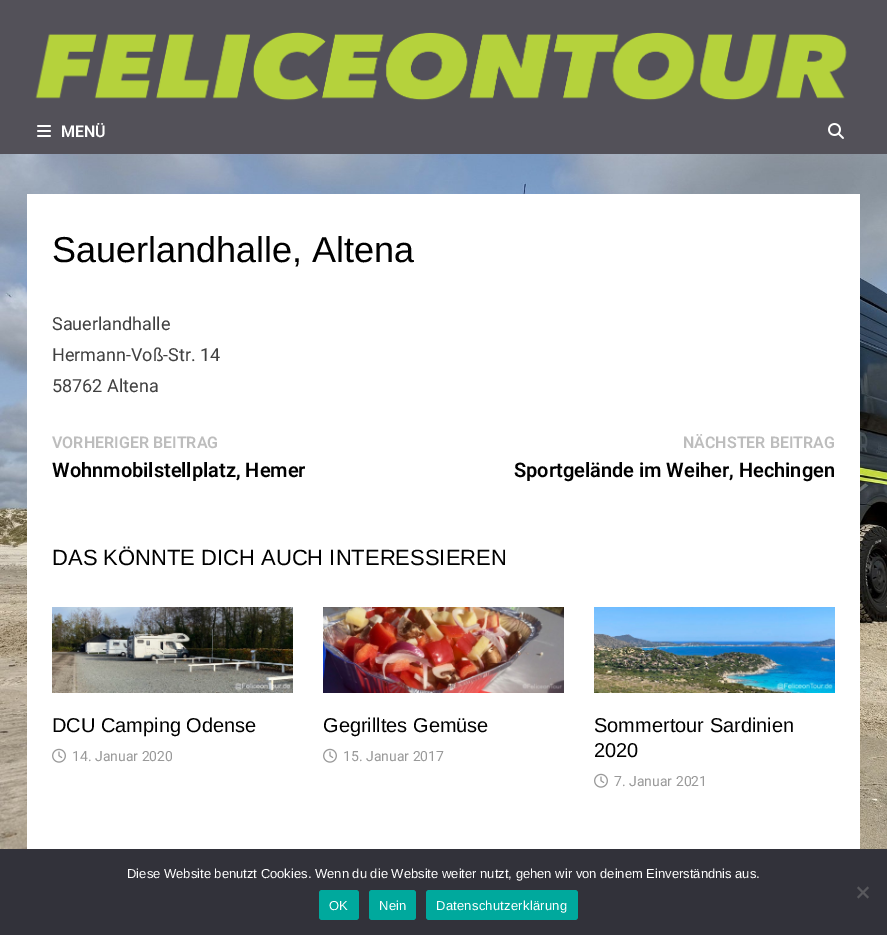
%!PS
<< /PageSize [887 935] >> setpagedevice
/roundrect { 5 dict begin { /r /h /w /y /x } { exch def } forall
  x r add y moveto x w add y 2 copy h add r arct x w add y h add x 1 index r arct
  x y h add x y r arct x y 2 copy exch w add exch r arct closepath end } def
/picture { 5 dict begin { /h /w /y /x /name } { exch def } forall
  gsave x y translate w h scale
  w h 8 [w 0 0 h 0 0] name (r) file false 3 colorimage grestore end } def
0 935 translate 1 -1 scale
4 setmiterlimit
1 setgray
0 0 887 935 rectfill
(img1.rgb) 0 154 887 695 picture
0.325 0.318 0.349 setrgbcolor
0 0 887 154 rectfill
(img2.rgb) 35 32 812 69 picture
(img3.rgb) 37 125 14 12 picture
/Roboto-SemiBold [16 0 0 -16 0 0] selectfont
1 setgray
61 137 moveto (MENÜ) show
(img4.rgb) 828 123 16 16 picture
27 194 833 655 rectfill
/LiberationSans-Regular [36 0 0 -36 0 0] selectfont
0 setgray
52 262 moveto (Sauerlandhalle, Altena) show
/Roboto-Regular [18 0 0 -18 0 0] selectfont
0.251 setgray
52 330 moveto (Sauerlandhalle) show
52 361 moveto (Hermann-Voß-Str. 14) show
52 392 moveto (58762 Altena) show
/Roboto-SemiBold [16 0 0 -16 0 0] selectfont
0.741 setgray
52 448 moveto (VORHERIGER BEITRAG) show
/Roboto-SemiBold [20 0 0 -20 0 0] selectfont
0 setgray
52 477 moveto (Wohnmobilstellplatz, Hemer) show
/Roboto-SemiBold [16 0 0 -16 0 0] selectfont
0.741 setgray
683 448 moveto (NÄCHSTER BEITRAG) show
/Roboto-SemiBold [20 0 0 -20 0 0] selectfont
0 setgray
514 477 moveto (Sportgelände im Weiher, Hechingen) show
/LiberationSans-Regular [22 0 0 -22 0 0] selectfont
52 565 moveto (DAS KÖNNTE DICH AUCH INTERESSIEREN) show
(img5.rgb) 52 607 241 86 picture
/LiberationSans-Regular [20 0 0 -20 0 0] selectfont
52 732 moveto (DCU Camping Odense) show
(img6.rgb) 52 748 14 15 picture
/Roboto-Regular [14 0 0 -14 0 0] selectfont
0.6 setgray
72 761 moveto (14. Januar 2020) show
(img7.rgb) 323 607 241 86 picture
/LiberationSans-Regular [20 0 0 -20 0 0] selectfont
0 setgray
323 732 moveto (Gegrilltes Gemüse) show
(img6.rgb) 323 748 14 15 picture
/Roboto-Regular [14 0 0 -14 0 0] selectfont
0.6 setgray
343 761 moveto (15. Januar 2017) show
(img8.rgb) 594 607 241 86 picture
/LiberationSans-Regular [20 0 0 -20 0 0] selectfont
0 setgray
594 732 moveto (Sommertour Sardinien) show
594 757 moveto (2020) show
(img6.rgb) 594 773 14 15 picture
/Roboto-Regular [14 0 0 -14 0 0] selectfont
0.6 setgray
614 786 moveto (7. Januar 2021) show
0.196 0.196 0.227 setrgbcolor
0 849 887 86 rectfill
/LiberationSans-Regular [13 0 0 -13 0 0] selectfont
1 setgray
127 878 moveto (Diese Website benutzt Cookies. Wenn du die Website weiter nutzt, gehen wir von deinem Einverständnis aus.) show
0.349 0.349 0.365 setrgbcolor
newpath 867.5 886.5 moveto 869 888 lineto 858.5 898.5 lineto 857 897 lineto closepath fill
newpath 857 888 moveto 858.5 886.5 lineto 869 897 lineto 867.5 898.5 lineto closepath fill
0 0.663 0.616 setrgbcolor
319 890 40 30 3 roundrect fill
1 setgray
329 910 moveto 0.25 0 (OK) ashow
0 0.663 0.616 setrgbcolor
369 890 47 30 3 roundrect fill
1 setgray
379 910 moveto 0.25 0 (Nein) ashow
0 0.663 0.616 setrgbcolor
426 890 152 30 3 roundrect fill
1 setgray
436 910 moveto 0.25 0 (Datenschutzerklärung) ashow
showpage
